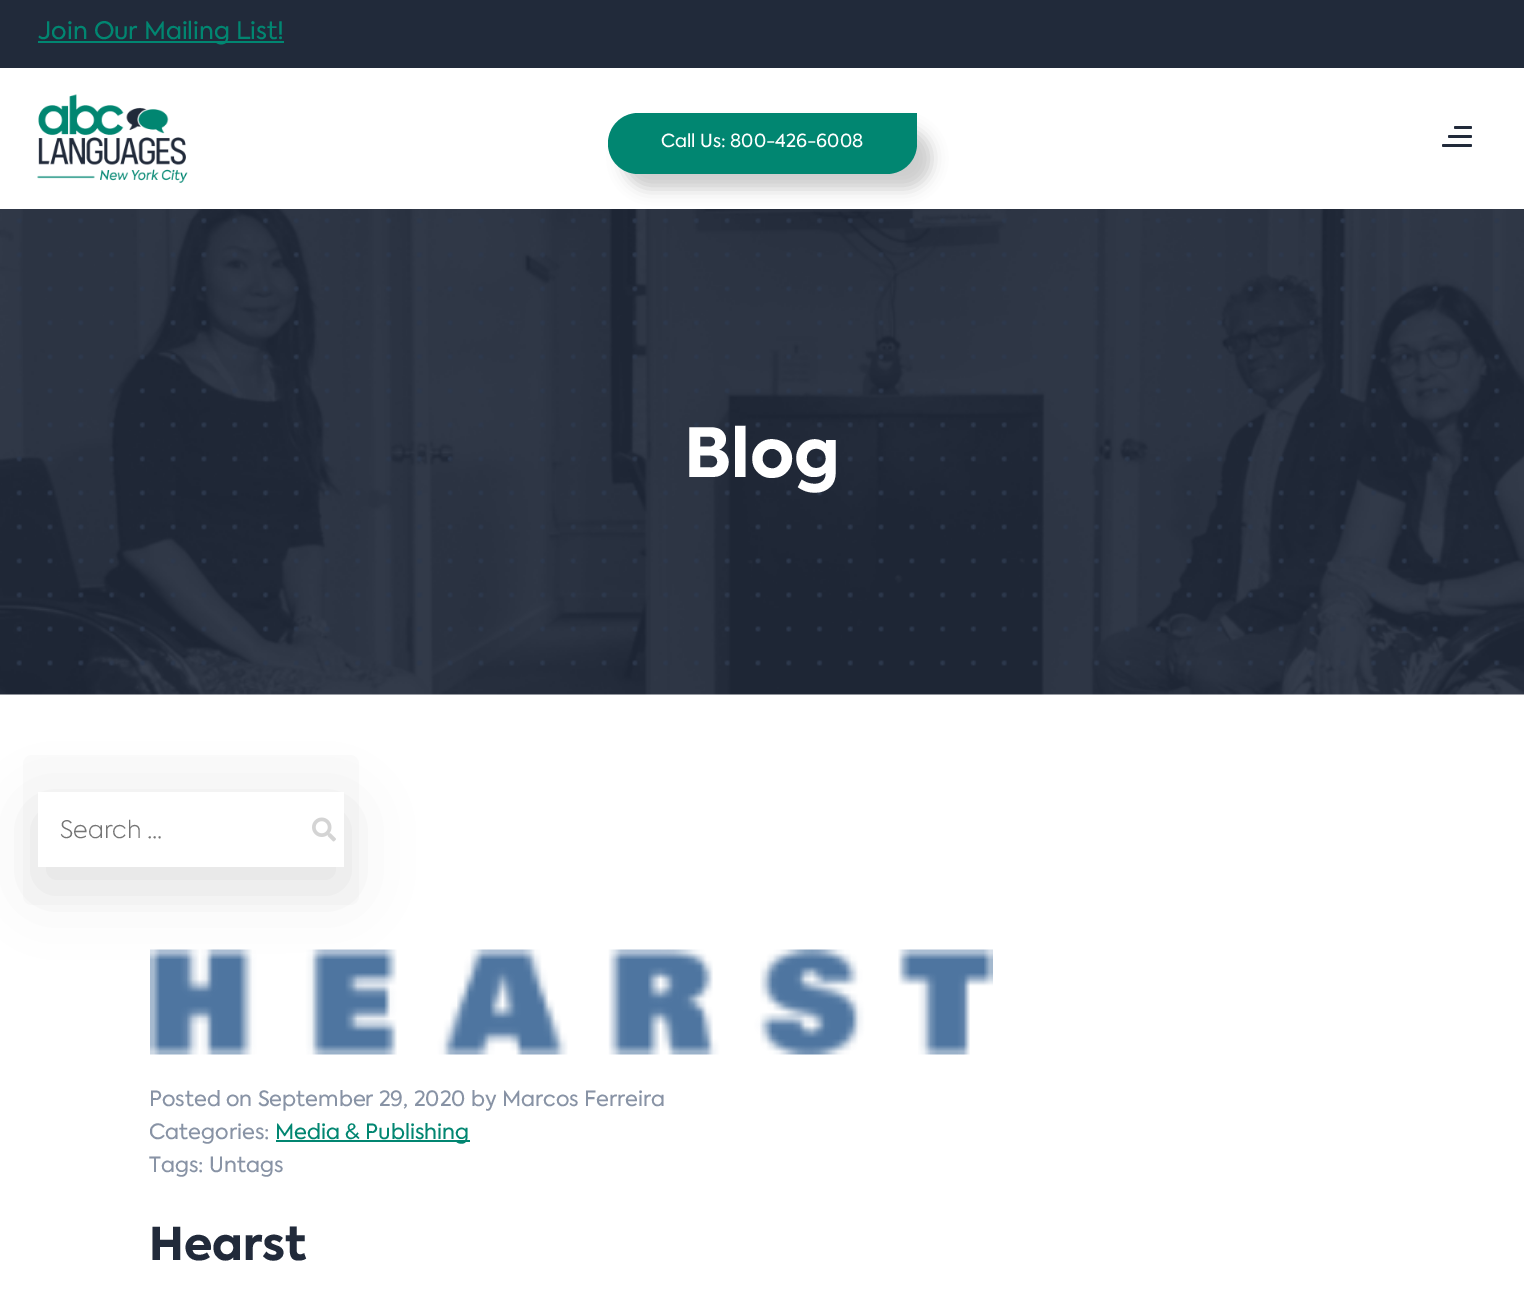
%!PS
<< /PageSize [1524 1306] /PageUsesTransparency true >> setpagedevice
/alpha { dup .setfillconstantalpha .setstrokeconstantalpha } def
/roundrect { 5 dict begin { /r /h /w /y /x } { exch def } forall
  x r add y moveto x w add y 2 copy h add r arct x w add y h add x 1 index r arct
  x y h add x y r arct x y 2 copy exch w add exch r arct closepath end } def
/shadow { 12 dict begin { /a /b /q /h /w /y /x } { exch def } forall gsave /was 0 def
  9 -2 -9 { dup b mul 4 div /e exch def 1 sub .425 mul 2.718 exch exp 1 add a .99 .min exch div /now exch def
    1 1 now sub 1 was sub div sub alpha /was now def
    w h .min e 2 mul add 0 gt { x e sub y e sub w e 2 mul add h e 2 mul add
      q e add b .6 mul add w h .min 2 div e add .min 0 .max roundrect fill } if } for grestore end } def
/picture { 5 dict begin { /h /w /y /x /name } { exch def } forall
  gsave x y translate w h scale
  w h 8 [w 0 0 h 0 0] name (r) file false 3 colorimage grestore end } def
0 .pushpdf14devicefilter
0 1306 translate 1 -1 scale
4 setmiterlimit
1 setgray
0 0 1524 1306 rectfill
0.129 0.165 0.227 setrgbcolor
0 0 1524 68 rectfill
0.004 0.525 0.443 setrgbcolor
38 41 246 2 rectfill
/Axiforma-Regular [24 0 0 -24 0 0] selectfont
38 39 moveto (Join Our Mailing List!) show
(img1.rgb) 37 94 151 89 picture
(img2.rgb) 0 209 1524 486 picture
0.804 setgray
623 128 309 61 30.5 7.5 1 shadow
0.004 0.525 0.443 setrgbcolor
newpath 638.5 113 moveto 917 113 lineto 917 143.5 lineto 917 160.5 903.5 174 886.5 174 curveto 638.5 174 lineto 621.5 174 608 160.5 608 143.5 curveto 608 126.5 621.5 113 638.5 113 curveto closepath fill
/Axiforma-Regular [18 0 0 -18 0 0] selectfont
1 setgray
661 147 moveto (Call Us: 800-426-6008) show
0.129 0.165 0.227 setrgbcolor
1454 126 18 3 1.5 roundrect fill
1448 135 24 3 1.5 roundrect fill
1442 144 30 3 1.5 roundrect fill
/Axiforma-ExtraBold [67.5 0 0 -67.5 0 0] selectfont
1 setgray
684 477 moveto (Blog) show
0.984 setgray
23 755 336 150 9 roundrect fill
0 setgray
38 813 306 75 0 32 0.1 shadow
1 setgray
38 792 306 75 rectfill
/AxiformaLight-Light [24 0 0 -24 0 0] selectfont
0.459 setgray
60 838 moveto (Search …) show
(img3.rgb) 312 817 24 25 picture
(img4.rgb) 150 949 843 106 picture
/Axiforma-Regular [21 0 0 -21 0 0] selectfont
0.533 0.576 0.647 setrgbcolor
149 1106 moveto (Posted on September 29, 2020 by Marcos Ferreira) show
149 1139 moveto (Categories:) show
0.004 0.525 0.443 setrgbcolor
276 1140 194 2 rectfill
275 1139 moveto (Media & Publishing) show
0.533 0.576 0.647 setrgbcolor
149 1172 moveto (Tags: Untags) show
/Axiforma-ExtraBold [45 0 0 -45 0 0] selectfont
0.129 0.165 0.227 setrgbcolor
149 1260 moveto (Hearst) show
.poppdf14devicefilter showpage
